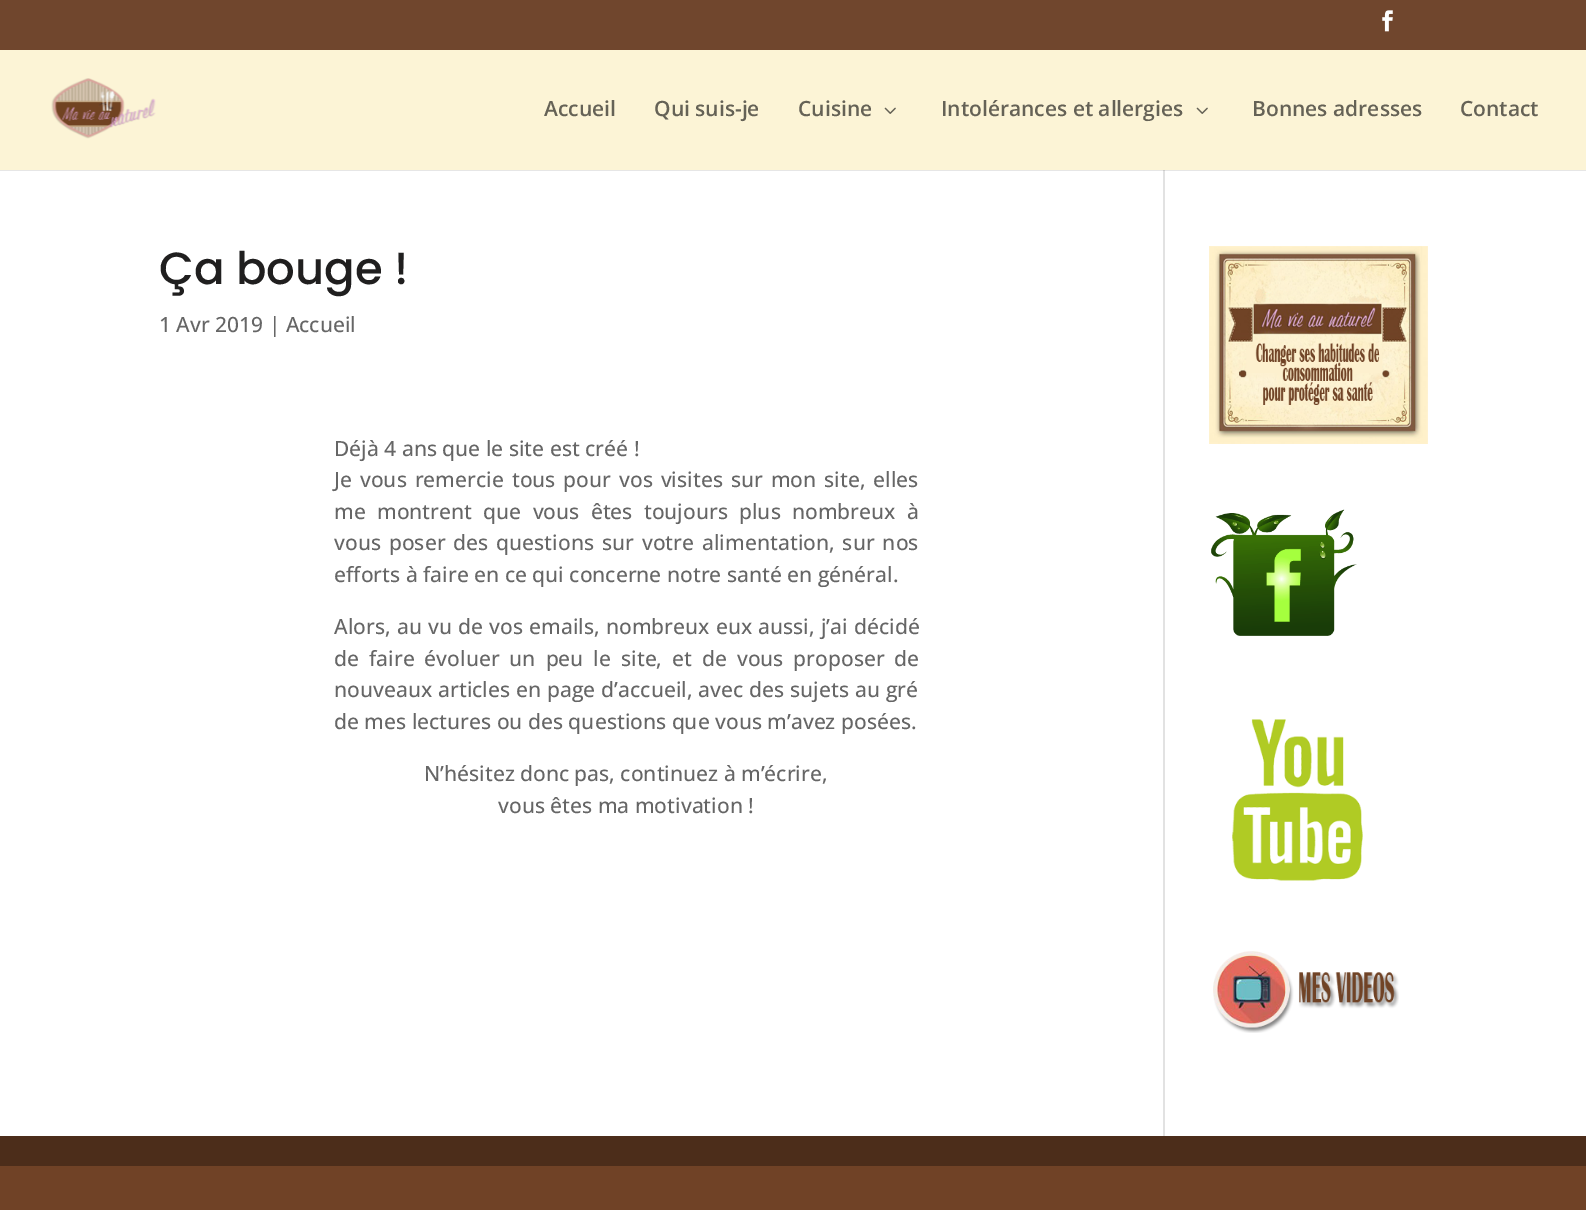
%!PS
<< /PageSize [1586 1210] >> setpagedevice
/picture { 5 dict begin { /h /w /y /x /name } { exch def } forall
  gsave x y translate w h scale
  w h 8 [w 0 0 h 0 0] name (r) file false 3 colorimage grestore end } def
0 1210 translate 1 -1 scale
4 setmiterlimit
0.439 0.259 0.149 setrgbcolor
0 0 1586 1210 rectfill
0.439 0.275 0.176 setrgbcolor
0 0 1586 50 rectfill
(img1.rgb) 1382 10 11 22 picture
0.988 0.957 0.839 setrgbcolor
0 50 1586 120 rectfill
(img2.rgb) 51 78 105 61 picture
/OpenSans-SemiBold [21 0 0 -21 0 0] selectfont
0.396 0.384 0.337 setrgbcolor
544 116 moveto (Accueil) show
654 116 moveto (Qui suis-je) show
798 116 moveto (Cuisine) show
(img3.rgb) 884 107 12 7 picture
941 116 moveto (Intolérances et allergies) show
(img3.rgb) 1196 107 12 7 picture
1252 116 moveto (Bonnes adresses) show
1460 116 moveto (Contact) show
1 setgray
0 171 1586 965 rectfill
0.902 setgray
0 170 1586 1 rectfill
/Poppins-Medium [45 0 0 -45 0 0] selectfont
0.125 0.122 0.122 setrgbcolor
159 284 moveto (Ça bouge !) show
/OpenSans-Medium [21 0 0 -21 0 0] selectfont
0.4 setgray
159 332 moveto (1 Avr 2019 | Accueil) show
334 456 moveto (Déjà 4 ans que le site est créé !) show
334 487 moveto 2.5 0 32 (Je vous remercie tous pour vos visites sur mon site, elles) widthshow
334 519 moveto 5.75 0 32 (me montrent que vous êtes toujours plus nombreux à) widthshow
334 550 moveto 2.5 0 32 (vous poser des questions sur votre alimentation, sur nos) widthshow
334 582 moveto (efforts à faire en ce qui concerne notre santé en général.) show
334 634 moveto 0.75 0 32 (Alors, au vu de vos emails, nombreux eux aussi, j’ai décidé) widthshow
334 666 moveto 4.5 0 32 (de faire évoluer un peu le site, et de vous proposer de) widthshow
334 697 moveto 0.5 0 32 (nouveaux articles en page d’accueil, avec des sujets au gré) widthshow
334 729 moveto (de mes lectures ou des questions que vous m’avez posées.) show
424 781 moveto (N’hésitez donc pas, continuez à m’écrire,) show
498 813 moveto (vous êtes ma motivation !) show
(img4.rgb) 1209 246 219 198 picture
(img5.rgb) 1211 509 146 127 picture
(img6.rgb) 1232 719 131 162 picture
(img7.rgb) 1213 951 186 82 picture
0.886 setgray
1163 171 2 965 rectfill
0.796 setgray
1163 170 2 1 rectfill
0.298 0.176 0.102 setrgbcolor
0 1136 1586 30 rectfill
showpage
